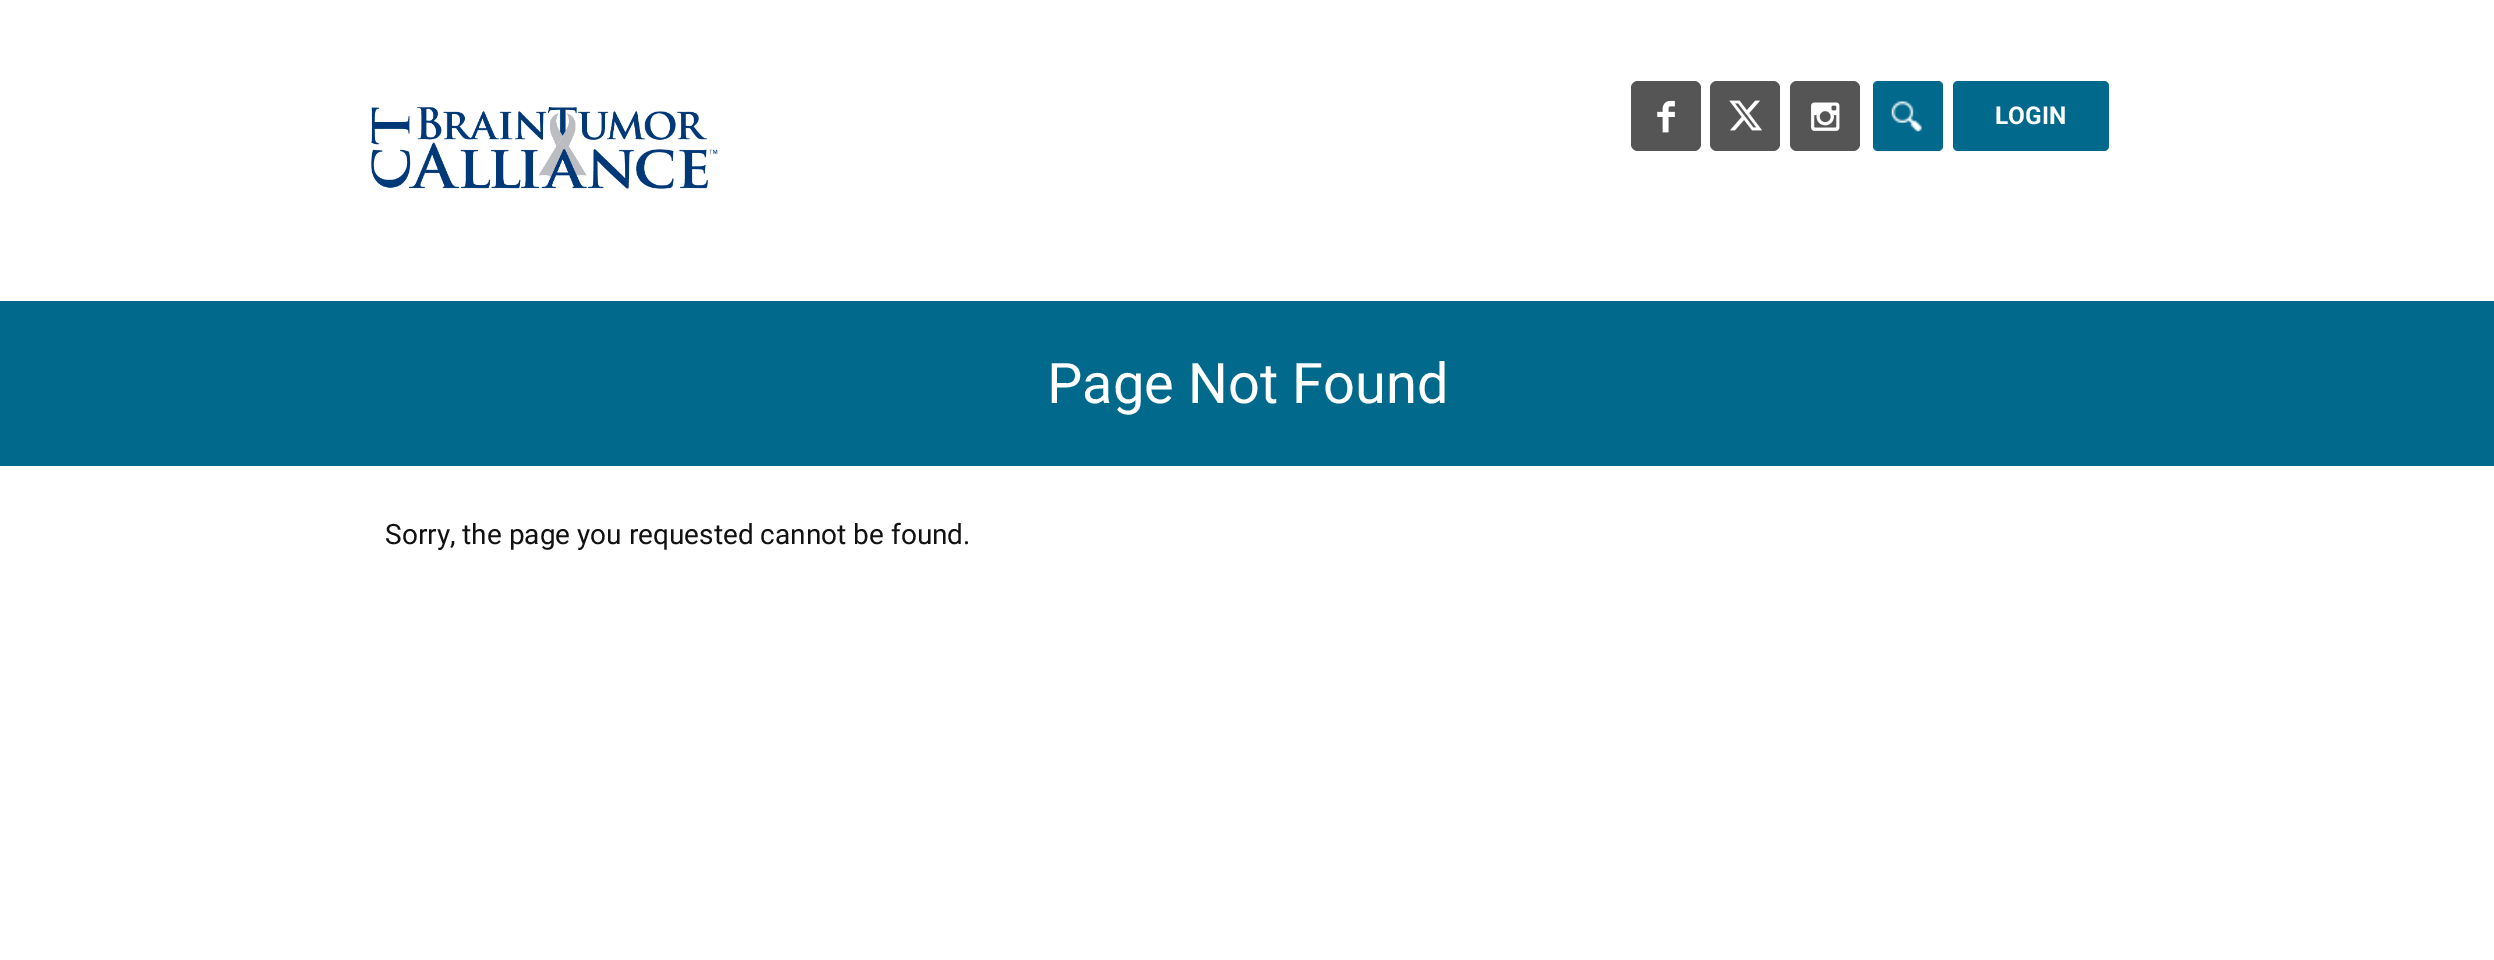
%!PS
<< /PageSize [2494 960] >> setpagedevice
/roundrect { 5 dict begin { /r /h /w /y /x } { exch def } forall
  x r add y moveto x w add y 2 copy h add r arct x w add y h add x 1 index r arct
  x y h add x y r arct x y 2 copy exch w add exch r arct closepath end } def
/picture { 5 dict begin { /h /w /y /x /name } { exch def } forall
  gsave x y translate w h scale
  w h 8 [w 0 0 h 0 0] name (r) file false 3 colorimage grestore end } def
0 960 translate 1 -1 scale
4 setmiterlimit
1 setgray
0 0 2494 960 rectfill
(img1.rgb) 371 107 347 82 picture
0.333 setgray
1631 81 70 70 7 roundrect fill
(img2.rgb) 1657 100 18 33 picture
1710 81 70 70 7 roundrect fill
(img3.rgb) 1729 100 33 31 picture
1790 81 70 70 7 roundrect fill
(img4.rgb) 1811 102 29 29 picture
0.867 0.855 0.839 setrgbcolor
2 setlinewidth
1874 82 68 68 4 roundrect stroke
0 0.412 0.549 setrgbcolor
1873 81 70 70 5 roundrect fill
(img5.rgb) 1891 101 31 31 picture
1953 81 156 70 5 roundrect fill
/Roboto-Bold [24.5 0 0 -24.5 0 0] selectfont
1 setgray
1995 124 moveto (LOGIN) show
0 0.412 0.549 setrgbcolor
0 301 2494 165 rectfill
/Roboto-Regular [56 0 0 -56 0 0] selectfont
1 setgray
1047 403 moveto (Page Not Found) show
/Roboto-Regular [28 0 0 -28 0 0] selectfont
0.067 setgray
385 544 moveto (Sorry, the page you requested cannot be found.) show
showpage
